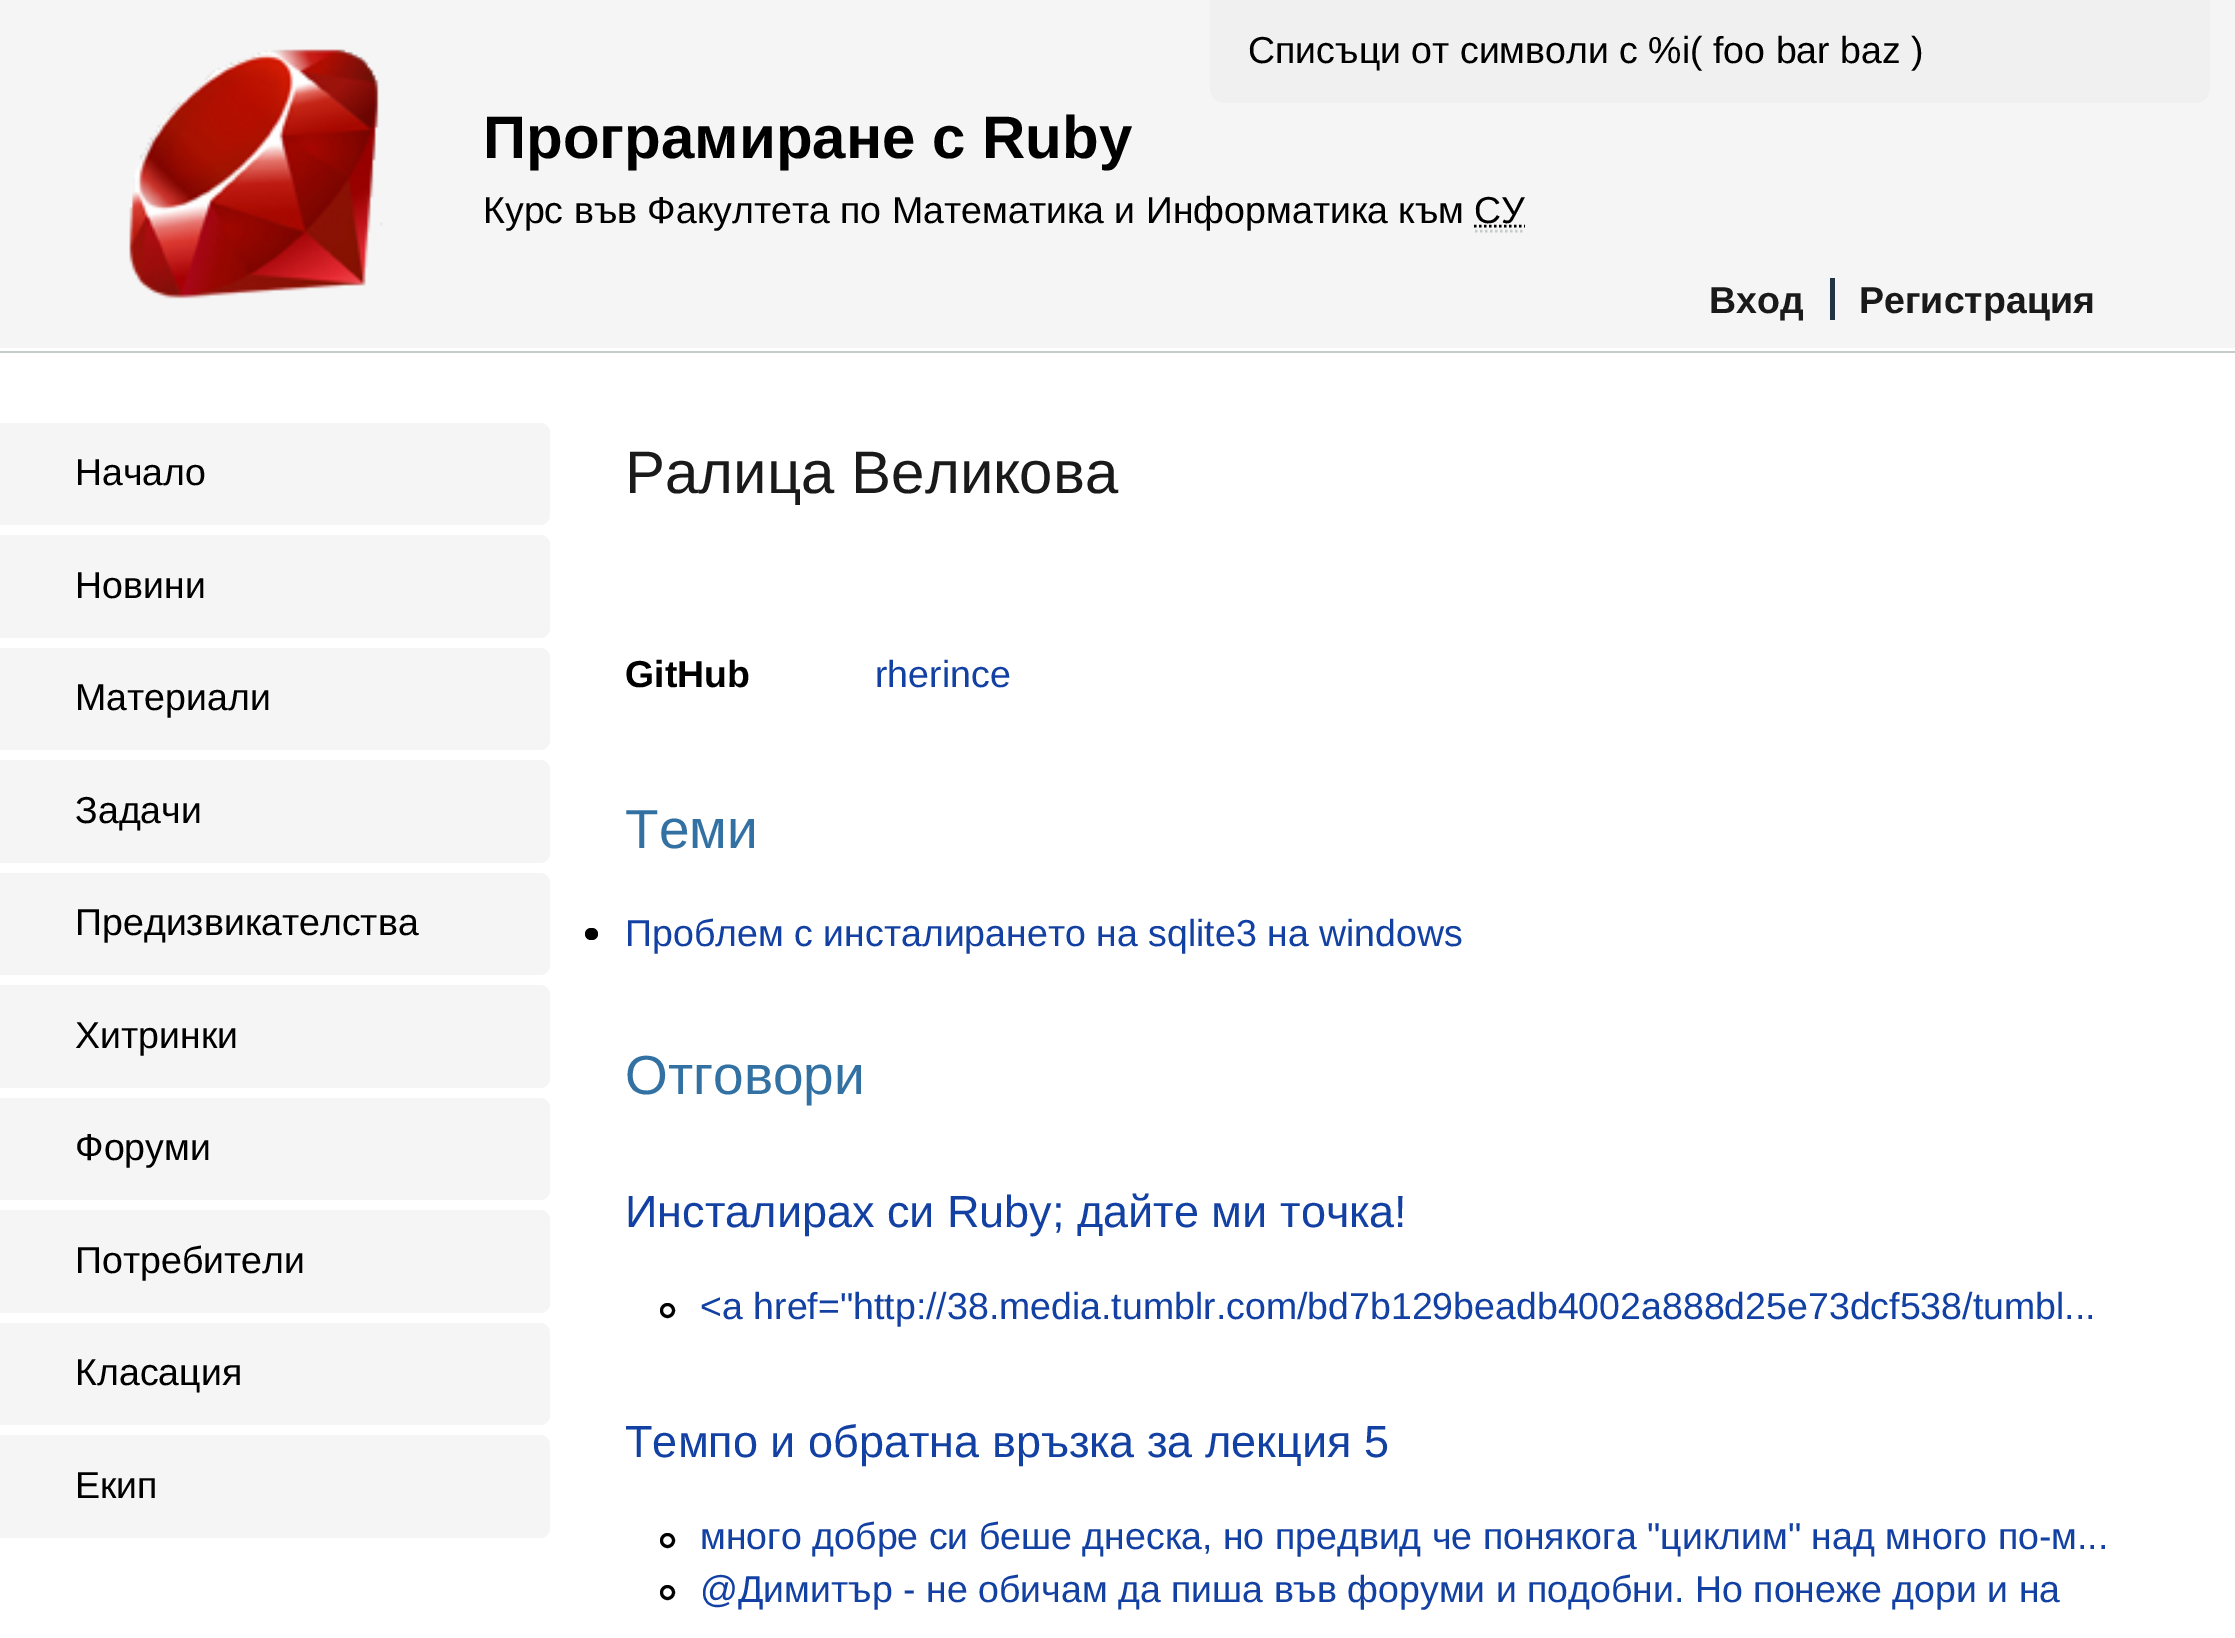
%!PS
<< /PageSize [2235 1638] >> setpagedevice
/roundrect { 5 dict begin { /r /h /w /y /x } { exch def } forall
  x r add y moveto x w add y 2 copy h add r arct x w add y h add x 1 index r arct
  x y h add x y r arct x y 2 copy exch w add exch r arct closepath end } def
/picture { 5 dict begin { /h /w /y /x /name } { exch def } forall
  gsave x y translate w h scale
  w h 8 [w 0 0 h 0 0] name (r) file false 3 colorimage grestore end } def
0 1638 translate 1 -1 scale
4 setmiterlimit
1 setgray
0 0 2235 1638 rectfill
0.769 0.8 0.8 setrgbcolor
0 351 2235 2 rectfill
0.961 setgray
0 0 2235 348 rectfill
(img1.rgb) 129 49 254 250 picture
/LiberationSans-Bold [60 0 0 -60 0 0] selectfont
0 setgray
483 158 moveto (Програмиране с Ruby) show
0.941 setgray
newpath 1210 0 moveto 2210 0 lineto 2210 88 lineto 2210 96.5 2203.5 103 2195 103 curveto 1225 103 lineto 1216.5 103 1210 96.5 1210 88 curveto closepath fill
/LiberationSans-Regular [37.5 0 0 -37.5 0 0] selectfont
0 setgray
1248 63 moveto (Списъци от символи с %i\( foo bar baz \)) show
483 223 moveto (Курс във Факултета по Математика и Информатика към СУ) show
2.5 setlinewidth
[2.5 2.5] 0 setdash
newpath 1474 226 moveto 1525 226 lineto stroke
0.769 0.8 0.8 setrgbcolor
newpath 1475 231 moveto 1525 231 lineto stroke
/LiberationSans-Bold [37.5 0 0 -37.5 0 0] selectfont
0.102 setgray
1709 313 moveto (Вход) show
1859 313 moveto (Регистрация) show
0.133 0.2 0.267 setrgbcolor
1830 278 5 42 rectfill
0.961 setgray
newpath 0 423 moveto 540 423 lineto 545.5 423 550 427.5 550 433 curveto 550 515 lineto 550 520.5 545.5 525 540 525 curveto 0 525 lineto closepath fill
/LiberationSans-Regular [37.5 0 0 -37.5 0 0] selectfont
0 setgray
75 485 moveto (Начало) show
0.961 setgray
newpath 0 535 moveto 540 535 lineto 545.5 535 550 539.5 550 545 curveto 550 628 lineto 550 633.5 545.5 638 540 638 curveto 0 638 lineto closepath fill
0 setgray
75 598 moveto (Новини) show
0.961 setgray
newpath 0 648 moveto 540 648 lineto 545.5 648 550 652.5 550 658 curveto 550 740 lineto 550 745.5 545.5 750 540 750 curveto 0 750 lineto closepath fill
0 setgray
75 710 moveto (Материали) show
0.961 setgray
newpath 0 760 moveto 540 760 lineto 545.5 760 550 764.5 550 770 curveto 550 853 lineto 550 858.5 545.5 863 540 863 curveto 0 863 lineto closepath fill
0 setgray
75 823 moveto (Задачи) show
0.961 setgray
newpath 0 873 moveto 540 873 lineto 545.5 873 550 877.5 550 883 curveto 550 965 lineto 550 970.5 545.5 975 540 975 curveto 0 975 lineto closepath fill
0 setgray
75 935 moveto (Предизвикателства) show
0.961 setgray
newpath 0 985 moveto 540 985 lineto 545.5 985 550 989.5 550 995 curveto 550 1078 lineto 550 1083.5 545.5 1088 540 1088 curveto 0 1088 lineto closepath fill
0 setgray
75 1048 moveto (Хитринки) show
0.961 setgray
newpath 0 1098 moveto 540 1098 lineto 545.5 1098 550 1102.5 550 1108 curveto 550 1190 lineto 550 1195.5 545.5 1200 540 1200 curveto 0 1200 lineto closepath fill
0 setgray
75 1160 moveto (Форуми) show
0.961 setgray
newpath 0 1210 moveto 540 1210 lineto 545.5 1210 550 1214.5 550 1220 curveto 550 1303 lineto 550 1308.5 545.5 1313 540 1313 curveto 0 1313 lineto closepath fill
0 setgray
75 1273 moveto (Потребители) show
0.961 setgray
newpath 0 1323 moveto 540 1323 lineto 545.5 1323 550 1327.5 550 1333 curveto 550 1415 lineto 550 1420.5 545.5 1425 540 1425 curveto 0 1425 lineto closepath fill
0 setgray
75 1385 moveto (Класация) show
0.961 setgray
newpath 0 1435 moveto 540 1435 lineto 545.5 1435 550 1439.5 550 1445 curveto 550 1528 lineto 550 1533.5 545.5 1538 540 1538 curveto 0 1538 lineto closepath fill
0 setgray
75 1498 moveto (Екип) show
/LiberationSans-Regular [60 0 0 -60 0 0] selectfont
0.102 setgray
625 493 moveto (Ралица Великова) show
/LiberationSans-Bold [37.5 0 0 -37.5 0 0] selectfont
0 setgray
625 687 moveto (GitHub) show
/LiberationSans-Regular [37.5 0 0 -37.5 0 0] selectfont
0.075 0.255 0.639 setrgbcolor
875 687 moveto (rherince) show
/LiberationSans-Regular [55 0 0 -55 0 0] selectfont
0.2 0.443 0.639 setrgbcolor
625 848 moveto (Теми) show
0 setgray
585 928 13 12 6 roundrect fill
/LiberationSans-Regular [37.5 0 0 -37.5 0 0] selectfont
0.075 0.255 0.639 setrgbcolor
625 946 moveto (Проблем с инсталирането на sqlite3 на windows) show
/LiberationSans-Regular [55 0 0 -55 0 0] selectfont
0.2 0.443 0.639 setrgbcolor
625 1094 moveto (Отговори) show
/LiberationSans-Regular [45 0 0 -45 0 0] selectfont
0.075 0.255 0.639 setrgbcolor
625 1227 moveto (Инсталирах си Ruby; дайте ми точка!) show
0 setgray
3 setlinewidth
[] 0 setdash
newpath 667.5 1310.5 6 0 360 arc closepath stroke
/LiberationSans-Regular [37.5 0 0 -37.5 0 0] selectfont
0.075 0.255 0.639 setrgbcolor
700 1319 moveto (<a href="http://38.media.tumblr.com/bd7b129beadb4002a888d25e73dcf538/tumbl...) show
/LiberationSans-Regular [45 0 0 -45 0 0] selectfont
625 1457 moveto (Темпо и обратна връзка за лекция 5) show
0 setgray
newpath 667.5 1540.5 6 0 360 arc closepath stroke
/LiberationSans-Regular [37.5 0 0 -37.5 0 0] selectfont
0.075 0.255 0.639 setrgbcolor
700 1549 moveto (много добре си беше днеска, но предвид че понякога "циклим" над много по-м...) show
0 setgray
newpath 667.5 1592.5 6 0 360 arc closepath stroke
0.075 0.255 0.639 setrgbcolor
700 1602 moveto (@Димитър - не обичам да пиша във форуми и подобни. Но понеже дори и на) show
showpage
